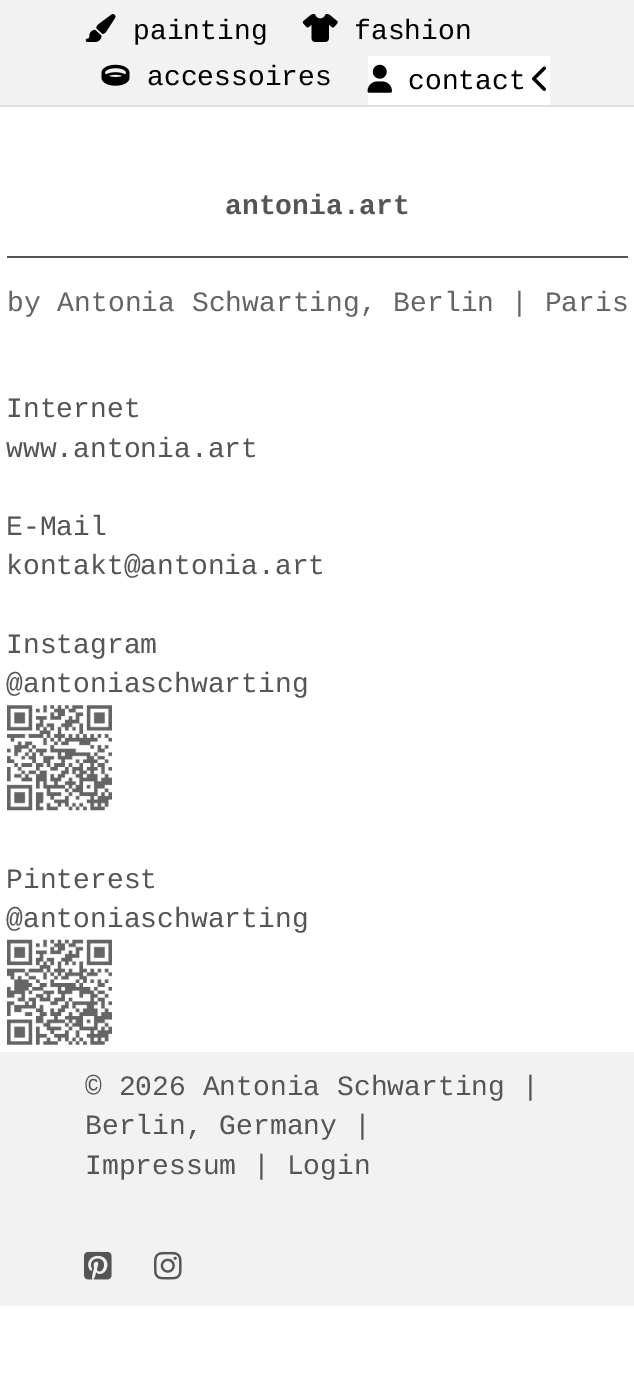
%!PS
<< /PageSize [634 1389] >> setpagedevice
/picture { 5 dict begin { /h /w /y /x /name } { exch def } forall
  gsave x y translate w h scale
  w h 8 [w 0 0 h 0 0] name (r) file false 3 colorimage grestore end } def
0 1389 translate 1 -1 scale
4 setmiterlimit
1 setgray
0 0 634 1389 rectfill
0.949 setgray
0 0 634 105 rectfill
0.871 0.886 0.902 setrgbcolor
0 105 634 2 rectfill
(img1.rgb) 85 14 31 28 picture
/LiberationMono-Regular [28 0 0 -28 0 0] selectfont
0 setgray
133 39 moveto (painting) show
(img2.rgb) 302 14 36 28 picture
354 39 moveto (fashion) show
(img3.rgb) 101 64 29 22 picture
147 85 moveto (accessoires) show
1 setgray
368 56 182 49 rectfill
(img4.rgb) 367 64 25 29 picture
0 setgray
408 89 moveto (contact) show
(img5.rgb) 532 66 14 25 picture
/LiberationMono-Bold [28 0 0 -28 0 0] selectfont
0.333 setgray
225 214 moveto (antonia.art) show
7 256 621 2 rectfill
/LiberationMono-Regular [28 0 0 -28 0 0] selectfont
0.392 setgray
7 311 moveto (by Antonia Schwarting, Berlin | Paris) show
0.333 setgray
6 417 moveto (Internet) show
6 457 moveto (www.antonia.art) show
6 535 moveto (E-Mail) show
6 574 moveto (kontakt@antonia.art) show
6 653 moveto (Instagram) show
6 692 moveto (@antoniaschwarting) show
(img6.rgb) 7 705 105 106 picture
6 888 moveto (Pinterest) show
6 927 moveto (@antoniaschwarting) show
(img7.rgb) 7 939 105 106 picture
0.949 setgray
0 1052 634 254 rectfill
0.333 setgray
85 1095 moveto (© 2026 Antonia Schwarting |) show
85 1134 moveto (Berlin, Germany |) show
85 1174 moveto (Impressum | Login) show
(img8.rgb) 84 1251 28 29 picture
(img9.rgb) 154 1251 28 29 picture
showpage
